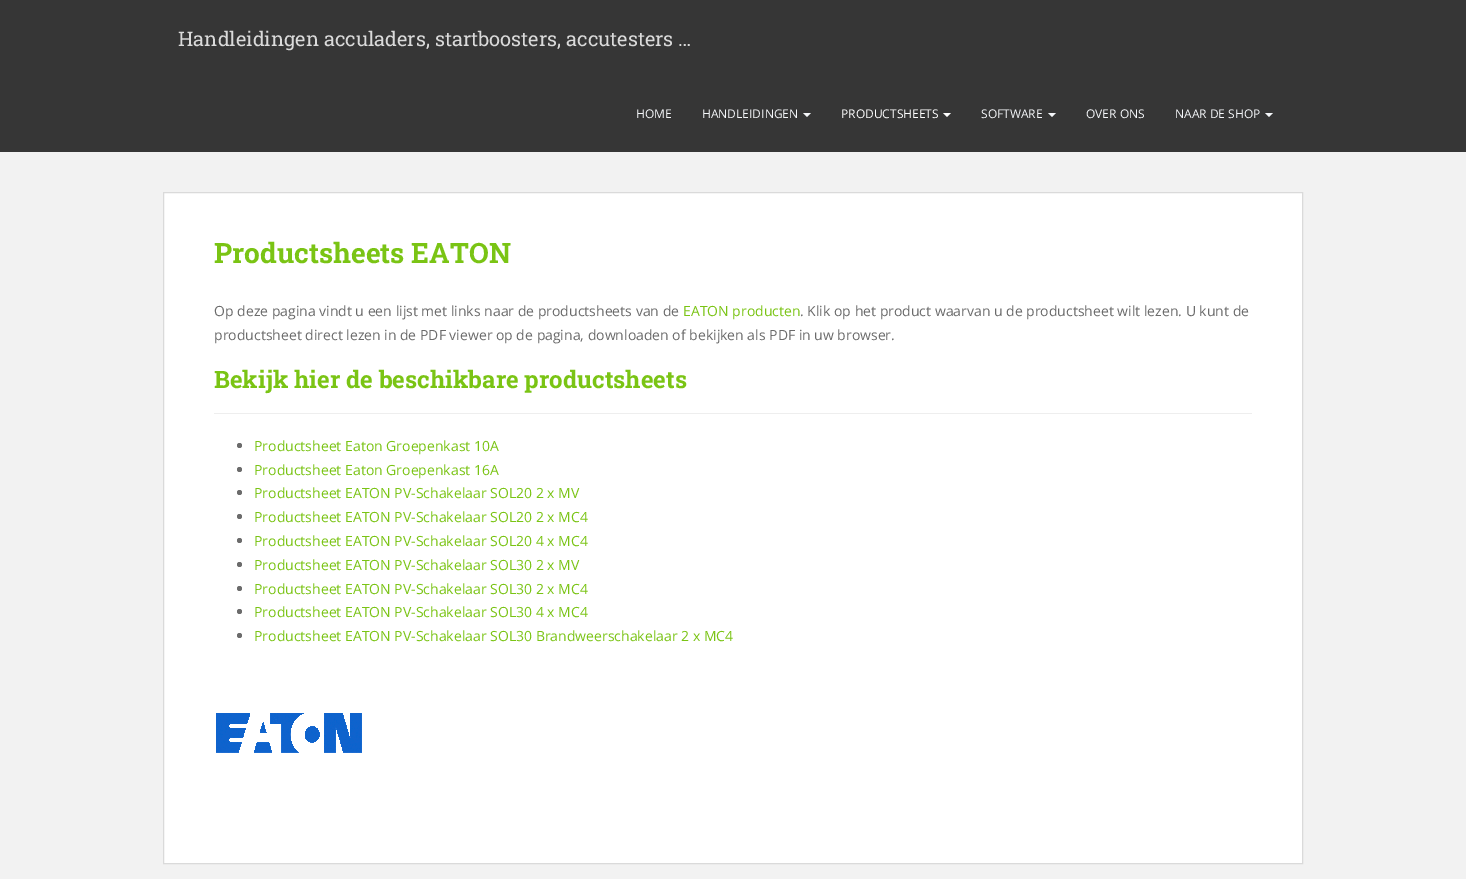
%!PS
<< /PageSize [1466 879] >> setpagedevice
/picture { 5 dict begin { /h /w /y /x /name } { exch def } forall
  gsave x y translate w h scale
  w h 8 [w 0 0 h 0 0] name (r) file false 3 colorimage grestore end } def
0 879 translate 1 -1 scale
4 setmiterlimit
0.949 setgray
0 0 1466 879 rectfill
0.212 setgray
0 0 1466 152 rectfill
/RobotoSlab-Regular [20 0 0 -20 0 0] selectfont
0.855 setgray
178 46 moveto (Handleidingen acculaders, startboosters, accutesters …) show
/OpenSans-Regular [12 0 0 -12 0 0] selectfont
0.961 0.969 0.98 setrgbcolor
636 118 moveto (HOME) show
702 118 moveto (HANDLEIDINGEN) show
newpath 803 113 moveto 811 113 lineto 807 117 lineto closepath fill
1 setgray
841 118 moveto (PRODUCTSHEETS) show
newpath 943 113 moveto 951 113 lineto 947 117 lineto closepath fill
0.961 0.969 0.98 setrgbcolor
981 118 moveto (SOFTWARE) show
newpath 1048 113 moveto 1056 113 lineto 1052 117 lineto closepath fill
1086 118 moveto (OVER ONS) show
1175 118 moveto (NAAR DE SHOP) show
newpath 1265 113 moveto 1273 113 lineto 1269 117 lineto closepath fill
1 setgray
newpath 163.5 192.5 moveto 1302.5 192.5 lineto 1302.5 863.5 lineto 163.5 863.5 lineto closepath gsave fill grestore
0.855 setgray
stroke
/RobotoSlab-Bold [28 0 0 -28 0 0] selectfont
0.478 0.769 0.078 setrgbcolor
214 263 moveto (Productsheets EATON) show
/OpenSans-Regular [14 0 0 -14 0 0] selectfont
0.42 setgray
214 316 moveto (Op deze pagina vindt u een lijst met links naar de productsheets van de) show
0.478 0.769 0.078 setrgbcolor
683 316 moveto (EATON producten) show
0.42 setgray
800 316 moveto (. Klik op het product waarvan u de productsheet wilt lezen. U kunt de) show
214 340 moveto (productsheet direct lezen in de PDF viewer op de pagina, downloaden of bekijken als PDF in uw browser.) show
/RobotoSlab-Bold [24 0 0 -24 0 0] selectfont
0.478 0.769 0.078 setrgbcolor
214 388 moveto (Bekijk hier de beschikbare productsheets) show
0.933 setgray
214 413 1038 1 rectfill
0.42 setgray
newpath 239.5 445.5 2.5 0 360 arc closepath fill
/OpenSans-Regular [14 0 0 -14 0 0] selectfont
0.478 0.769 0.078 setrgbcolor
254 451 moveto (Productsheet Eaton Groepenkast 10A) show
0.42 setgray
newpath 239.5 469.5 2.5 0 360 arc closepath fill
0.478 0.769 0.078 setrgbcolor
254 475 moveto (Productsheet Eaton Groepenkast 16A) show
0.42 setgray
newpath 239.5 492.5 2.5 0 360 arc closepath fill
0.478 0.769 0.078 setrgbcolor
254 498 moveto (Productsheet EATON PV-Schakelaar SOL20 2 x MV) show
0.42 setgray
newpath 239.5 516.5 2.5 0 360 arc closepath fill
0.478 0.769 0.078 setrgbcolor
254 522 moveto (Productsheet EATON PV-Schakelaar SOL20 2 x MC4) show
0.42 setgray
newpath 239.5 540.5 2.5 0 360 arc closepath fill
0.478 0.769 0.078 setrgbcolor
254 546 moveto (Productsheet EATON PV-Schakelaar SOL20 4 x MC4) show
0.42 setgray
newpath 239.5 564.5 2.5 0 360 arc closepath fill
0.478 0.769 0.078 setrgbcolor
254 570 moveto (Productsheet EATON PV-Schakelaar SOL30 2 x MV) show
0.42 setgray
newpath 239.5 588.5 2.5 0 360 arc closepath fill
0.478 0.769 0.078 setrgbcolor
254 594 moveto (Productsheet EATON PV-Schakelaar SOL30 2 x MC4) show
0.42 setgray
newpath 239.5 611.5 2.5 0 360 arc closepath fill
0.478 0.769 0.078 setrgbcolor
254 617 moveto (Productsheet EATON PV-Schakelaar SOL30 4 x MC4) show
0.42 setgray
newpath 239.5 635.5 2.5 0 360 arc closepath fill
0.478 0.769 0.078 setrgbcolor
254 641 moveto (Productsheet EATON PV-Schakelaar SOL30 Brandweerschakelaar 2 x MC4) show
(img1.rgb) 216 713 146 40 picture
showpage
